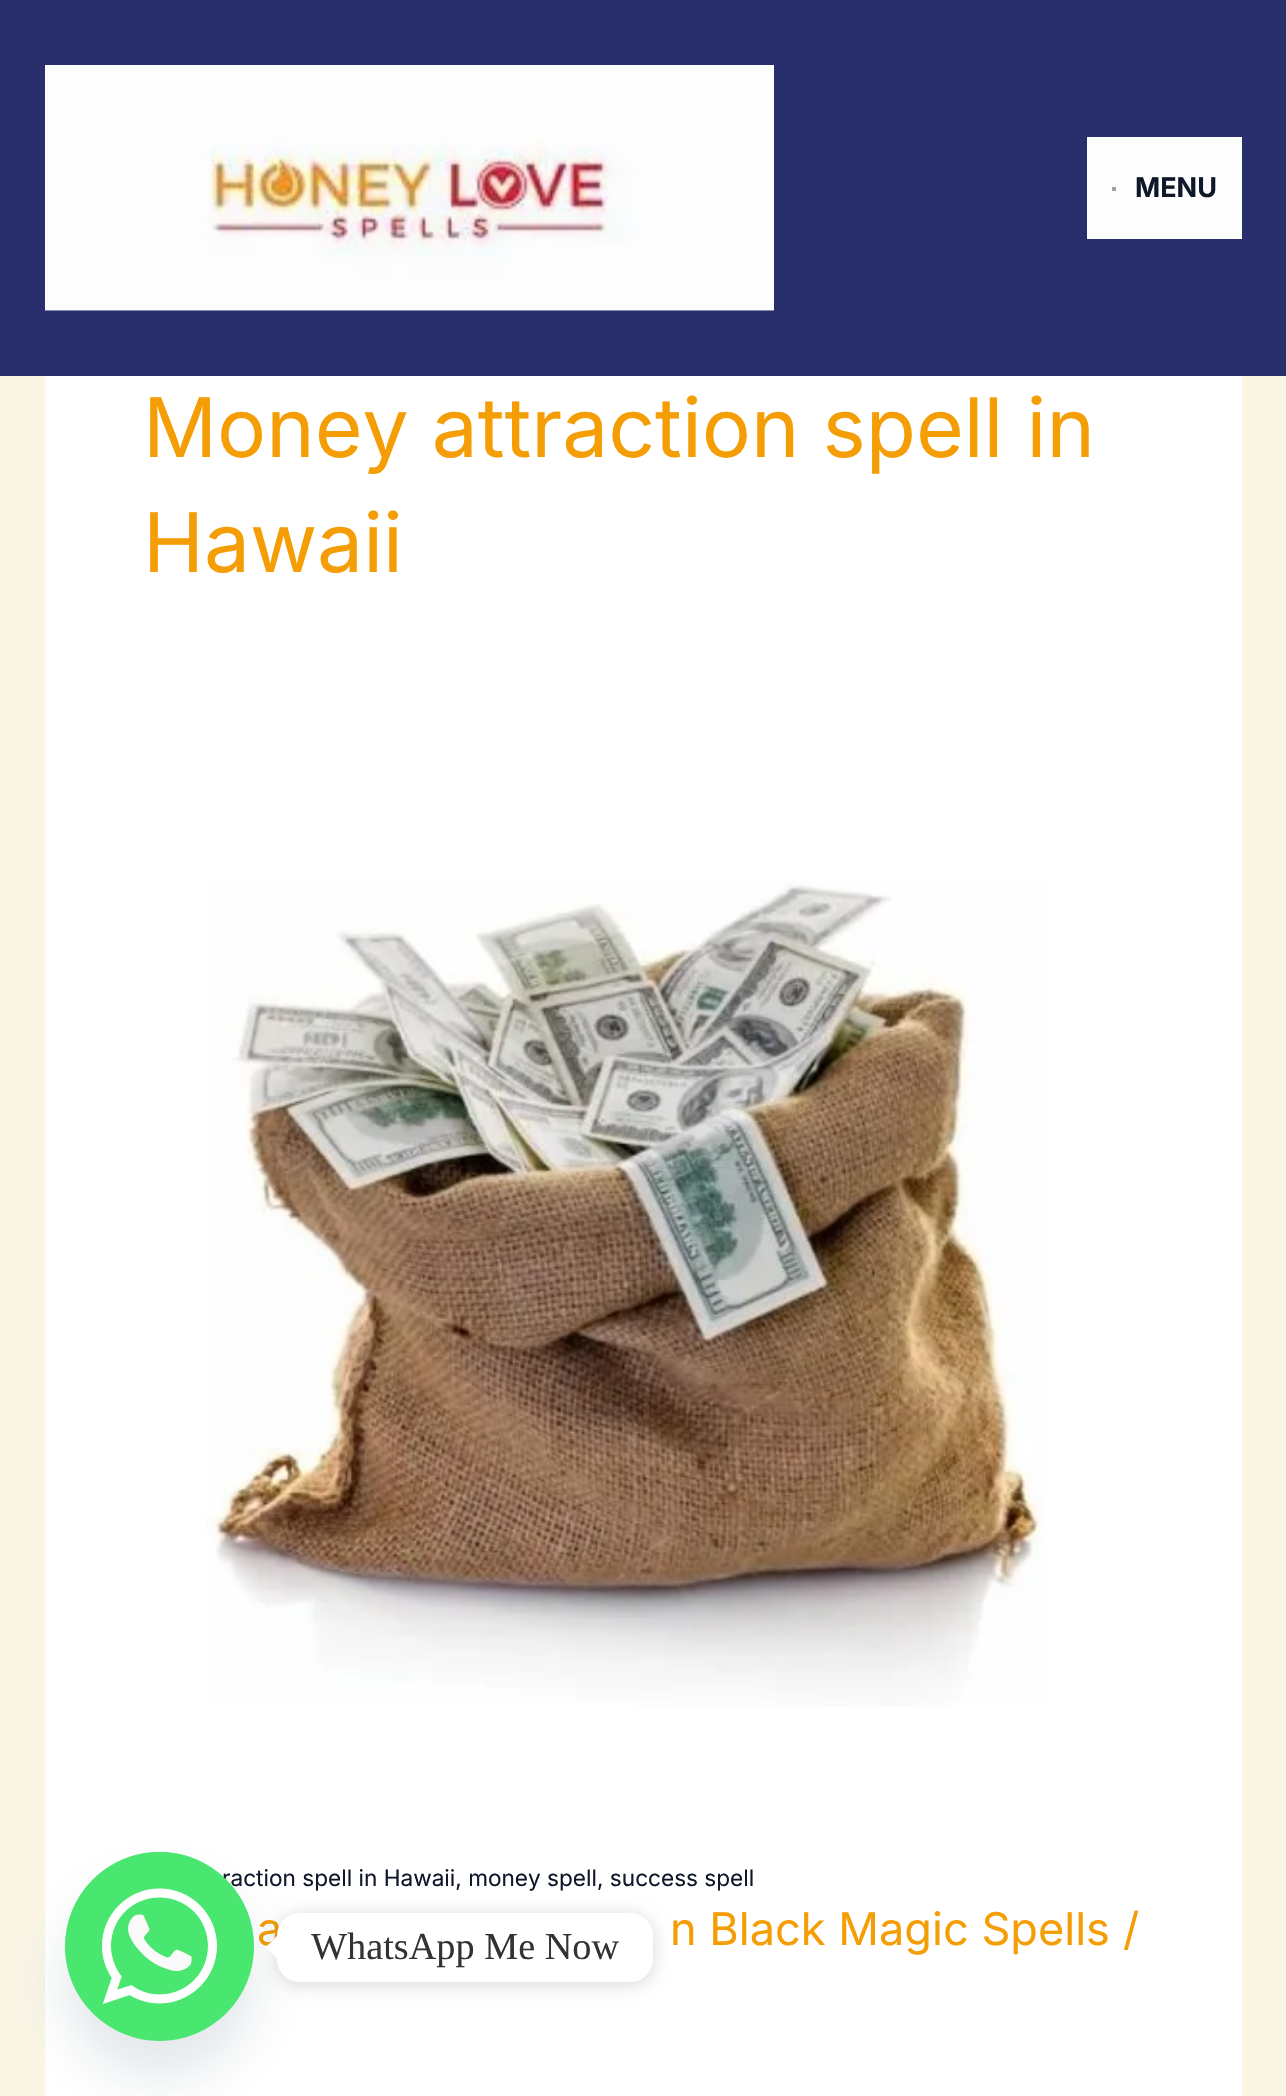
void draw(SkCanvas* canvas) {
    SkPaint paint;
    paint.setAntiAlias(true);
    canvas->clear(0xFFFAF5E5);
    paint.setColor(0xFF292E6D);
    canvas->drawRect(SkRect::MakeXYWH(0, 0, 1286, 376), paint);
    canvas->drawImageRect(SkImages::DeferredFromEncodedData(SkData::MakeFromFileName("img1.png")), SkRect::MakeXYWH(45, 65, 729, 246), SkSamplingOptions());
    paint.setColor(0xFFFDFDFE);
    canvas->drawRect(SkRect::MakeXYWH(1087, 137, 155, 102), paint);
    paint.setColor(0xFF9EA1A9);
    canvas->drawRect(SkRect::MakeXYWH(1112, 187, 4, 4), paint);
    SkFont font1(fontMgr->matchFamilyStyle("Inter", SkFontStyle::Bold()), 27);
    font1.setSubpixel(true);
    paint.setColor(0xFF0F172A);
    canvas->drawString("MENU", 1135, 197, font1, paint);
    paint.setColor(0xFFFFFFFF);
    canvas->drawRect(SkRect::MakeXYWH(45, 376, 1197, 1720), paint);
    SkFont font2(fontMgr->matchFamilyStyle("Inter", SkFontStyle::Normal()), 82);
    font2.setSubpixel(true);
    paint.setColor(0xFFF59D05);
    canvas->drawString("Money attraction spell in", 143, 457, font2, paint);
    canvas->drawString("Hawaii", 143, 572, font2, paint);
    canvas->drawImageRect(SkImages::DeferredFromEncodedData(SkData::MakeFromFileName("img2.png")), SkRect::MakeXYWH(206, 881, 840, 826), SkSamplingOptions());
    SkFont font3(fontMgr->matchFamilyStyle("Inter", SkFontStyle::Normal()), 22.6f);
    font3.setSubpixel(true);
    paint.setColor(0xFF0F172A);
    canvas->drawString("raction spell in Hawaii, money spell, success spell", 222, 1886, font3, paint);
    SkFont font4(fontMgr->matchFamilyStyle("Inter", SkFontStyle::Normal()), 45.1f);
    font4.setSubpixel(true);
    paint.setColor(0xFFF59D05);
    canvas->drawString("a", 257, 1945, font4, paint);
    canvas->drawString("n Black Magic Spells", 670, 1945, font4, paint);
    canvas->drawString("/", 1123, 1945, font4, paint);
    paint.setColor(0x2949687E);
    paint.setMaskFilter(SkMaskFilter::MakeBlur(kNormal_SkBlurStyle, 27));
    canvas->drawRoundRect(SkRect::MakeXYWH(65, 1888, 189, 189), 94.5f, 94.5f, paint);
    paint.setMaskFilter(nullptr);
    paint.setColor(0xFF49E670);
    canvas->drawCircle(159.5f, 1946.5f, 94.5f, paint);
    canvas->drawImageRect(SkImages::DeferredFromEncodedData(SkData::MakeFromFileName("img3.png")), SkRect::MakeXYWH(65, 1852, 189, 152), SkSamplingOptions());
    canvas->save();
    canvas->clipPath(SkPathBuilder(SkPathFillType::kEvenOdd).moveTo(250, 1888).lineTo(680, 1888).lineTo(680, 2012).lineTo(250, 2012).close().moveTo(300, 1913).lineTo(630, 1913).cubicTo(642.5f, 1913, 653, 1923.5f, 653, 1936).lineTo(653, 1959).cubicTo(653, 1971.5f, 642.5f, 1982, 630, 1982).lineTo(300, 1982).cubicTo(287.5f, 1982, 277, 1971.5f, 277, 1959).lineTo(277, 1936).cubicTo(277, 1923.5f, 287.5f, 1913, 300, 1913).close().detach(), true);
    paint.setColor(0x26000000);
    paint.setMaskFilter(SkMaskFilter::MakeBlur(kNormal_SkBlurStyle, 8.5f));
    canvas->drawRoundRect(SkRect::MakeXYWH(277, 1915, 376, 70), 23, 23, paint);
    paint.setMaskFilter(nullptr);
    canvas->restore();
    paint.setColor(0xFFFFFFFF);
    canvas->drawRoundRect(SkRect::MakeXYWH(277, 1913, 376, 69), 23, 23, paint);
    canvas->drawPath(SkPathBuilder().moveTo(277, 1936).lineTo(277, 1958.5f).lineTo(265.5f, 1947.5f).close().detach(), paint);
    SkFont font5(fontMgr->matchFamilyStyle("Liberation Serif", SkFontStyle::Normal()), 38.25f);
    font5.setSubpixel(true);
    paint.setColor(0xFF333333);
    canvas->drawString("WhatsApp Me Now", 311, 1959, font5, paint);
}
